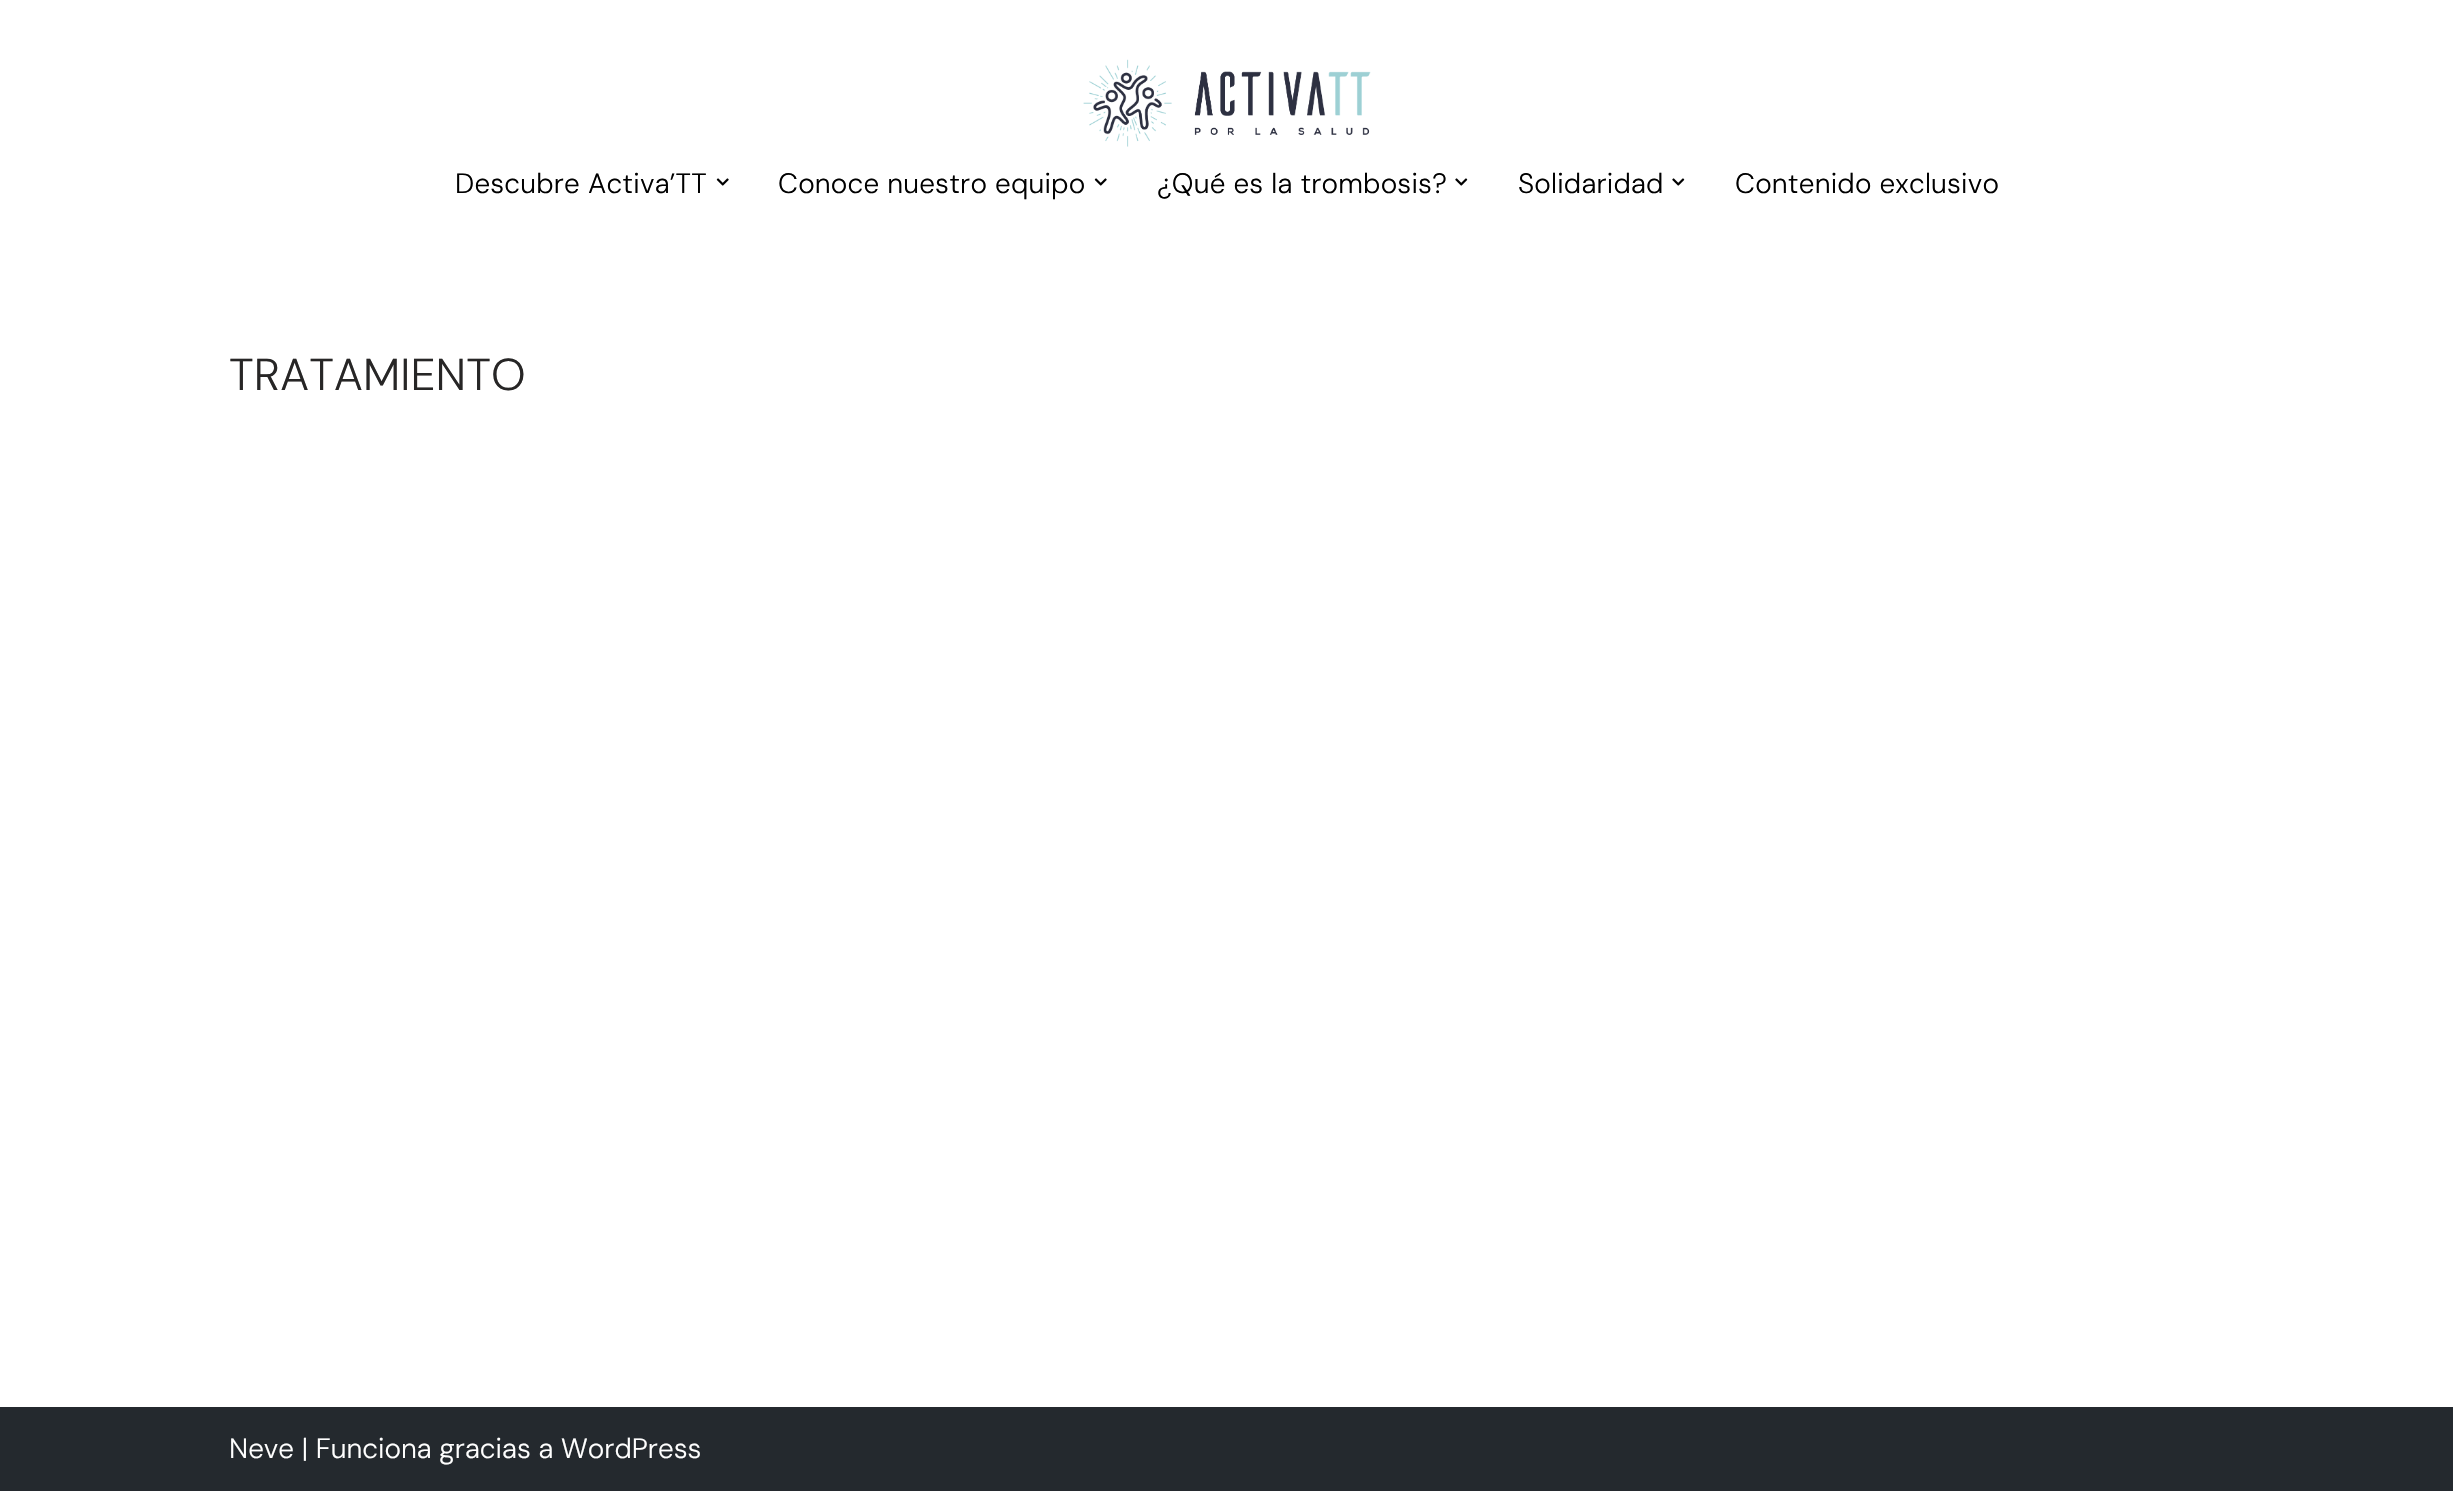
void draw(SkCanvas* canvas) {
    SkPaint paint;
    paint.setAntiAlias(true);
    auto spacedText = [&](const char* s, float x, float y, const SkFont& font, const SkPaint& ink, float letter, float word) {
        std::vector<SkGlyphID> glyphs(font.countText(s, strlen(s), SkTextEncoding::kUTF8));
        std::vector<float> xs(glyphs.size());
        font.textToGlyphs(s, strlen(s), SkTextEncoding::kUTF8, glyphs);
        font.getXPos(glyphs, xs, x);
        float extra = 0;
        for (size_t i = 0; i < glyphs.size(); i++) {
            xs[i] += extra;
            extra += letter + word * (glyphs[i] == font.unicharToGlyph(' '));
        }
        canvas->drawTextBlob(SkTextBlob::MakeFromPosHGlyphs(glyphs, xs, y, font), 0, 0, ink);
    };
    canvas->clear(0xFFFFFFFF);
    canvas->drawImageRect(SkImages::DeferredFromEncodedData(SkData::MakeFromFileName("img1.png")), SkRect::MakeXYWH(1083, 59, 288, 88), SkSamplingOptions());
    SkFont font1(fontMgr->matchFamilyStyle("DM Sans", SkFontStyle(300, SkFontStyle::kNormal_Width, SkFontStyle::kUpright_Slant)), 28);
    font1.setSubpixel(true);
    paint.setColor(0xFF000000);
    spacedText("Descubre Activa’TT", 455, 193, font1, paint, 0.2f, 0);
    canvas->drawImageRect(SkImages::DeferredFromEncodedData(SkData::MakeFromFileName("img2.png")), SkRect::MakeXYWH(716, 178, 13, 8), SkSamplingOptions());
    spacedText("Conoce nuestro equipo", 778, 193, font1, paint, 0.2f, 0);
    canvas->drawImageRect(SkImages::DeferredFromEncodedData(SkData::MakeFromFileName("img2.png")), SkRect::MakeXYWH(1094, 178, 13, 8), SkSamplingOptions());
    spacedText("¿Qué es la trombosis?", 1157, 193, font1, paint, 0.2f, 0);
    canvas->drawImageRect(SkImages::DeferredFromEncodedData(SkData::MakeFromFileName("img3.png")), SkRect::MakeXYWH(1455, 178, 13, 8), SkSamplingOptions());
    spacedText("Solidaridad", 1518, 193, font1, paint, 0.2f, 0);
    canvas->drawImageRect(SkImages::DeferredFromEncodedData(SkData::MakeFromFileName("img3.png")), SkRect::MakeXYWH(1672, 178, 13, 8), SkSamplingOptions());
    spacedText("Contenido exclusivo", 1735, 193, font1, paint, 0.2f, 0);
    SkFont font2(fontMgr->matchFamilyStyle("DM Sans", SkFontStyle(300, SkFontStyle::kNormal_Width, SkFontStyle::kUpright_Slant)), 44.75f);
    font2.setSubpixel(true);
    paint.setColor(0xFF272626);
    canvas->drawString("TRATAMIENTO", 229, 390, font2, paint);
    paint.setColor(0xFF24292E);
    canvas->drawRect(SkRect::MakeXYWH(0, 1407, 2453, 84), paint);
    paint.setColor(0xFFFFFFFF);
    canvas->drawString("Neve | Funciona gracias a WordPress", 229, 1458, font1, paint);
}
